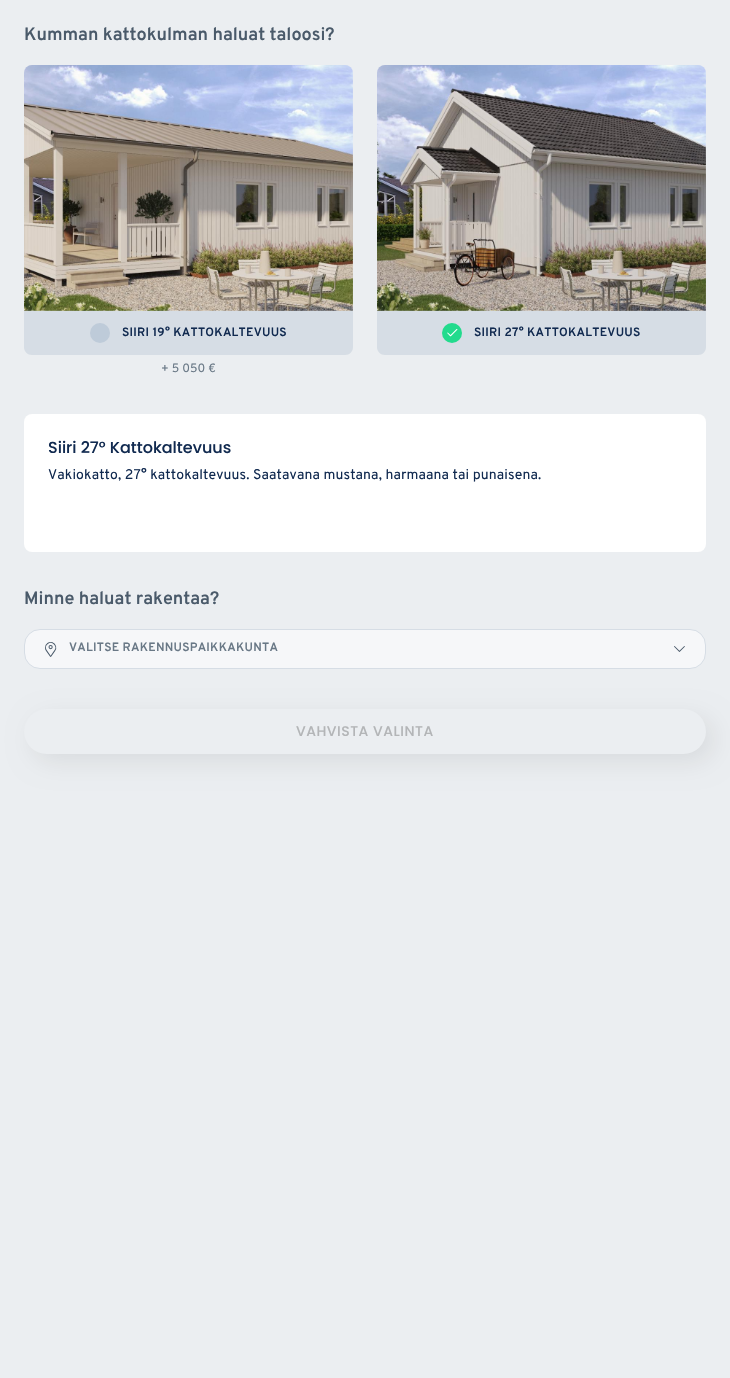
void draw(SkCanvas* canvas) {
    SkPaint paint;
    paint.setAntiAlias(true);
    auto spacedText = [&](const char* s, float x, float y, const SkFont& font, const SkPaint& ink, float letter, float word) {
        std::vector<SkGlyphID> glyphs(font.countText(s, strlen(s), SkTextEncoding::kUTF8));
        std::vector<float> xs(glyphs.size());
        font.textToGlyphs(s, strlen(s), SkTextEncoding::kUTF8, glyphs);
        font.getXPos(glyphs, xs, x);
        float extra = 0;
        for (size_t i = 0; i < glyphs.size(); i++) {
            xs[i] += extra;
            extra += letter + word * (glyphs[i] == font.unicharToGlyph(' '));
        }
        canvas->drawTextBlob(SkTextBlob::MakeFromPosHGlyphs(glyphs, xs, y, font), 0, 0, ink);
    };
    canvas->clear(0xFFEBEEF1);
    SkFont font1(fontMgr->matchFamilyStyle("Overpass", SkFontStyle(600, SkFontStyle::kNormal_Width, SkFontStyle::kUpright_Slant)), 18);
    font1.setSubpixel(true);
    paint.setColor(0xFF4A5A6A);
    canvas->drawString("Kumman kattokulman haluat taloosi?", 24, 40, font1, paint);
    canvas->drawImageRect(SkImages::DeferredFromEncodedData(SkData::MakeFromFileName("img1.png")), SkRect::MakeXYWH(24, 65, 329, 246), SkSamplingOptions());
    paint.setColor(0xFFD6DDE5);
    canvas->drawPath(SkPathBuilder().moveTo(24, 311).lineTo(353, 311).lineTo(353, 347).cubicTo(353, 351.5f, 349.5f, 355, 345, 355).lineTo(32, 355).cubicTo(27.5f, 355, 24, 351.5f, 24, 347).close().detach(), paint);
    paint.setColor(0xFFBECBD9);
    canvas->drawCircle(100, 333, 10, paint);
    SkFont font2(fontMgr->matchFamilyStyle("Overpass", SkFontStyle(600, SkFontStyle::kNormal_Width, SkFontStyle::kUpright_Slant)), 12);
    font2.setSubpixel(true);
    paint.setColor(0xFF112A50);
    spacedText("SIIRI 19° KATTOKALTEVUUS", 122, 336, font2, paint, 0.25f, 0);
    SkFont font3(fontMgr->matchFamilyStyle("Overpass", SkFontStyle::Normal()), 12);
    font3.setSubpixel(true);
    paint.setColor(0xFF697886);
    spacedText("+ 5 050 €", 161, 372, font3, paint, 0.1f, 0);
    canvas->drawImageRect(SkImages::DeferredFromEncodedData(SkData::MakeFromFileName("img2.png")), SkRect::MakeXYWH(377, 65, 329, 246), SkSamplingOptions());
    paint.setColor(0xFFD6DDE5);
    canvas->drawPath(SkPathBuilder().moveTo(377, 311).lineTo(706, 311).lineTo(706, 347).cubicTo(706, 351.5f, 702.5f, 355, 698, 355).lineTo(385, 355).cubicTo(380.5f, 355, 377, 351.5f, 377, 347).close().detach(), paint);
    paint.setColor(0xFF22DB8D);
    canvas->drawCircle(452, 333, 10, paint);
    canvas->drawImageRect(SkImages::DeferredFromEncodedData(SkData::MakeFromFileName("img3.png")), SkRect::MakeXYWH(447, 329, 11, 8), SkSamplingOptions());
    paint.setColor(0xFF112A50);
    spacedText("SIIRI 27° KATTOKALTEVUUS", 474, 336, font2, paint, 0.25f, 0);
    paint.setColor(0xFFFFFFFF);
    canvas->drawRoundRect(SkRect::MakeXYWH(24, 414, 682, 138), 8, 8, paint);
    SkFont font4(fontMgr->matchFamilyStyle("Poppins", SkFontStyle(500, SkFontStyle::kNormal_Width, SkFontStyle::kUpright_Slant)), 16);
    font4.setSubpixel(true);
    paint.setColor(0xFF112A50);
    canvas->drawString("Siiri 27° Kattokaltevuus", 48, 453, font4, paint);
    SkFont font5(fontMgr->matchFamilyStyle("Overpass", SkFontStyle::Normal()), 14);
    font5.setSubpixel(true);
    spacedText("Vakiokatto, 27° kattokaltevuus. Saatavana mustana, harmaana tai punaisena.", 48, 479, font5, paint, 0.15f, 0);
    paint.setColor(0xFF4A5A6A);
    canvas->drawString("Minne haluat rakentaa?", 24, 604, font1, paint);
    paint.setColor(0xFFF6F7F9);
    canvas->drawRoundRect(SkRect::MakeXYWH(24.5f, 629.5f, 681, 39), 15.5f, 15.5f, paint);
    paint.setStyle(SkPaint::kStroke_Style);
    paint.setStrokeWidth(1);
    paint.setColor(0xFFD6DDE5);
    canvas->drawRoundRect(SkRect::MakeXYWH(24.5f, 629.5f, 681, 39), 15.5f, 15.5f, paint);
    canvas->drawImageRect(SkImages::DeferredFromEncodedData(SkData::MakeFromFileName("img4.png")), SkRect::MakeXYWH(45, 642, 12, 15), SkSamplingOptions());
    paint.setStyle(SkPaint::kFill_Style);
    paint.setColor(0xFF697886);
    spacedText("VALITSE RAKENNUSPAIKKAKUNTA", 69, 651, font2, paint, 0.25f, 0);
    canvas->drawImageRect(SkImages::DeferredFromEncodedData(SkData::MakeFromFileName("img5.png")), SkRect::MakeXYWH(674, 646, 11, 6), SkSamplingOptions());
    paint.setColor(0x14000000);
    paint.setMaskFilter(SkMaskFilter::MakeBlur(kNormal_SkBlurStyle, 12));
    canvas->drawRoundRect(SkRect::MakeXYWH(32, 717, 682, 45), 22.5f, 22.5f, paint);
    paint.setMaskFilter(nullptr);
    paint.setColor(0xFFEBEEF1);
    canvas->drawRoundRect(SkRect::MakeXYWH(24, 709, 682, 45), 22.5f, 22.5f, paint);
    SkFont font6(fontMgr->matchFamilyStyle("Poppins", SkFontStyle(500, SkFontStyle::kNormal_Width, SkFontStyle::kUpright_Slant)), 14);
    font6.setSubpixel(true);
    paint.setColor(0xFFB3B5B7);
    spacedText("VAHVISTA VALINTA", 296, 736, font6, paint, 0.5f, 0);
}
